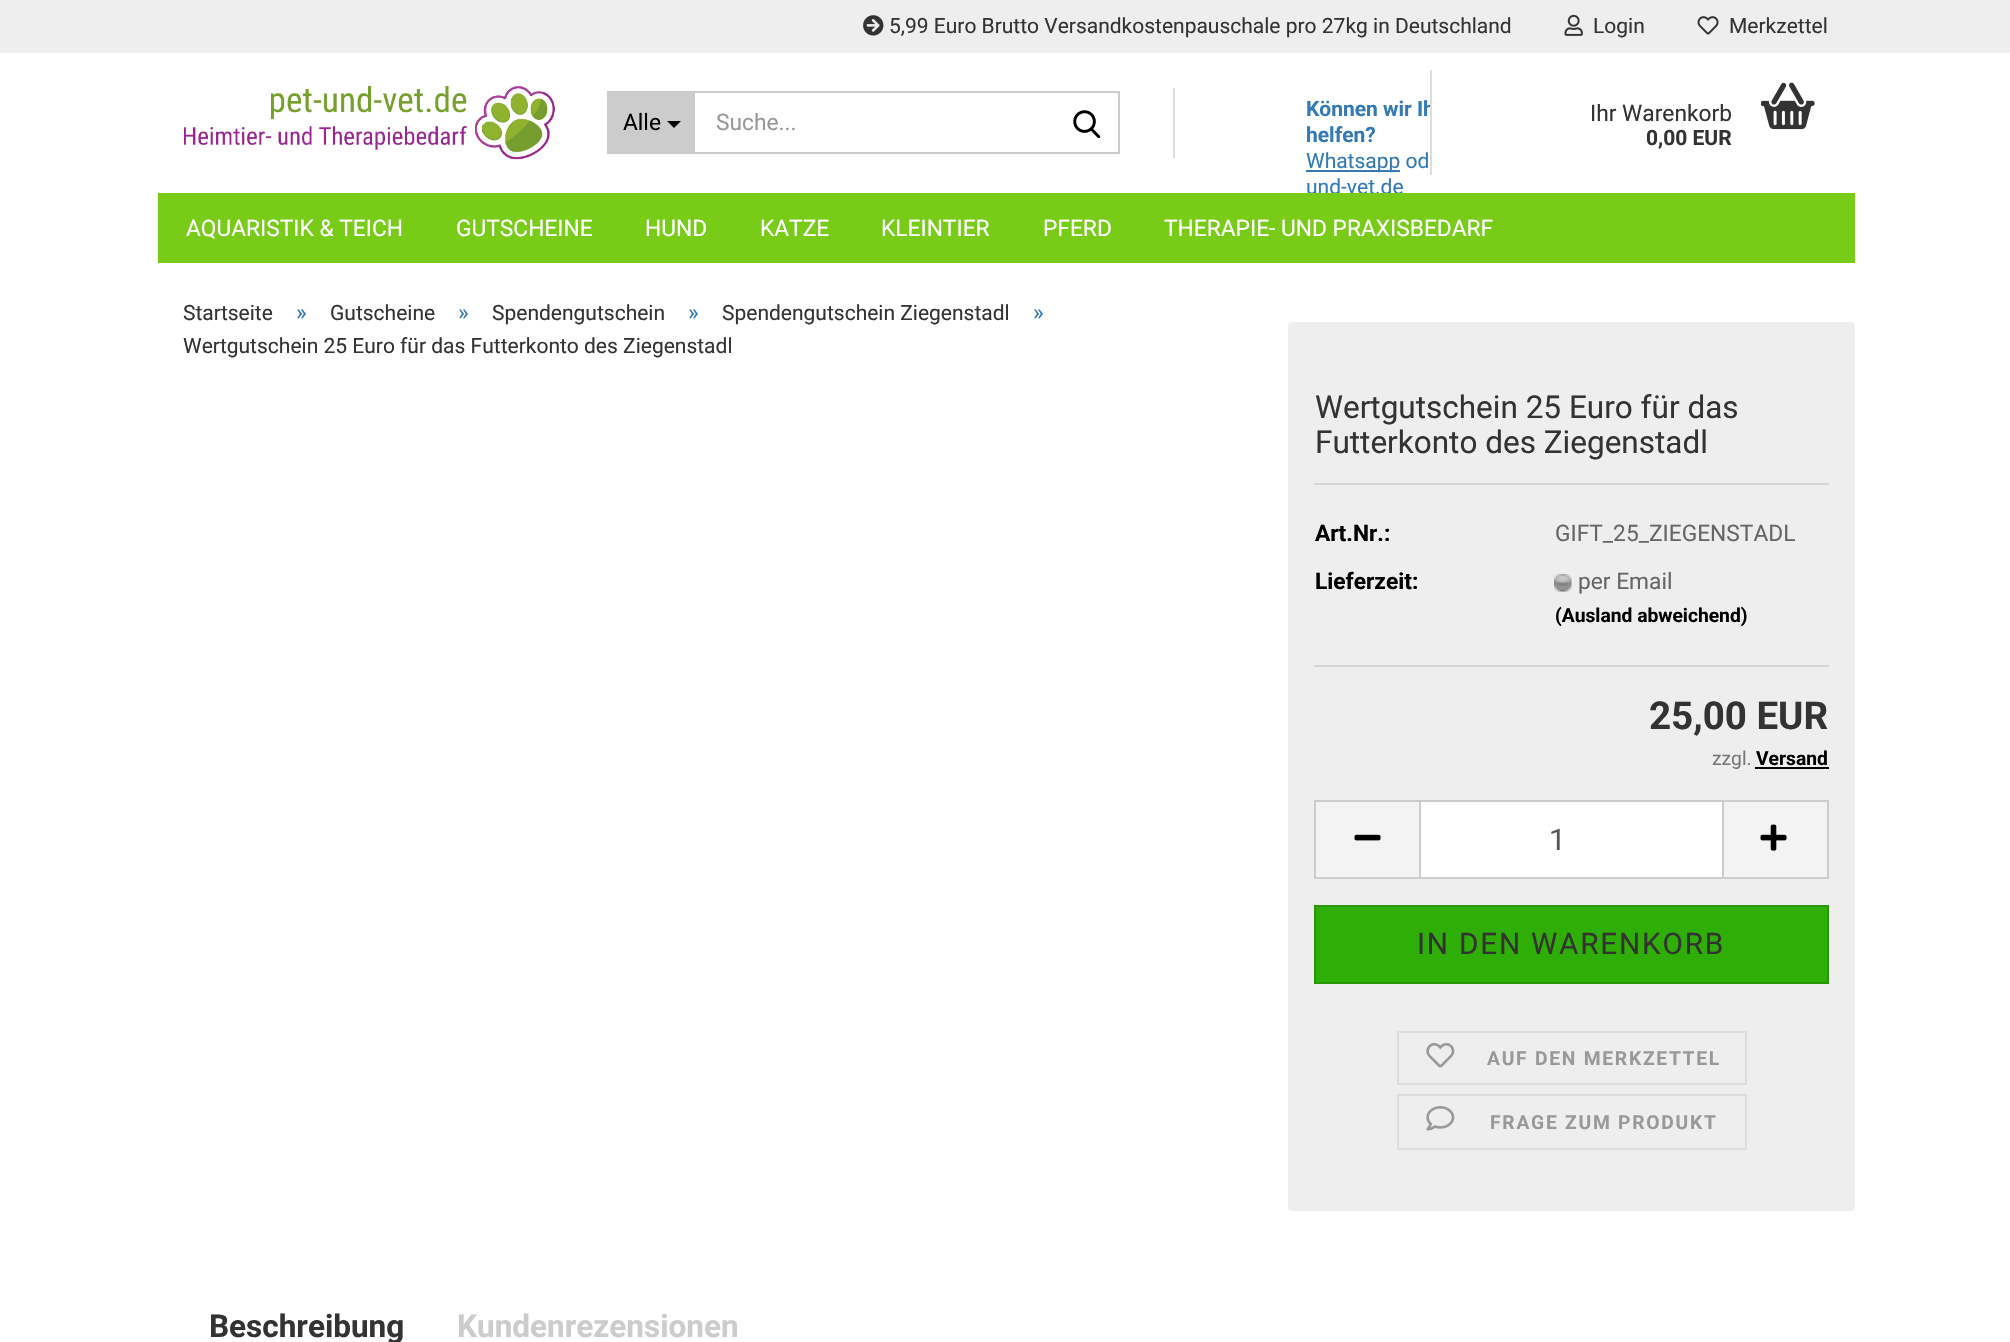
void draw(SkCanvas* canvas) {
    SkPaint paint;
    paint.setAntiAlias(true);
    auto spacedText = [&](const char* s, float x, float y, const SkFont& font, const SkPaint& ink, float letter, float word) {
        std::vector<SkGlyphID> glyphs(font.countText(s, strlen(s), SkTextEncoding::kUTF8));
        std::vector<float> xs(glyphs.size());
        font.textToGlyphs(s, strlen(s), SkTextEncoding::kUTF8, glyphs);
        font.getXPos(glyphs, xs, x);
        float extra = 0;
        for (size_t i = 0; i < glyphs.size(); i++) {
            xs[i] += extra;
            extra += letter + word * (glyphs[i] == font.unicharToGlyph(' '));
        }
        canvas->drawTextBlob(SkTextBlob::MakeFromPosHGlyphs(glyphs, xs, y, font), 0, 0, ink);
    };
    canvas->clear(0xFFFFFFFF);
    paint.setColor(0xFFEEEEEE);
    canvas->drawRect(SkRect::MakeXYWH(0, 0, 2010, 53), paint);
    canvas->drawImageRect(SkImages::DeferredFromEncodedData(SkData::MakeFromFileName("img1.png")), SkRect::MakeXYWH(863, 15, 21, 21), SkSamplingOptions());
    SkFont font1(fontMgr->matchFamilyStyle("Roboto", SkFontStyle::Normal()), 21);
    font1.setSubpixel(true);
    paint.setColor(0xFF333333);
    canvas->drawString("5,99 Euro Brutto Versandkostenpauschale pro 27kg in Deutschland", 889, 33, font1, paint);
    canvas->drawImageRect(SkImages::DeferredFromEncodedData(SkData::MakeFromFileName("img2.png")), SkRect::MakeXYWH(1564, 14, 19, 22), SkSamplingOptions());
    canvas->drawString("Login", 1593, 33, font1, paint);
    canvas->drawImageRect(SkImages::DeferredFromEncodedData(SkData::MakeFromFileName("img3.png")), SkRect::MakeXYWH(1697, 16, 22, 19), SkSamplingOptions());
    canvas->drawString("Merkzettel", 1729, 33, font1, paint);
    canvas->drawImageRect(SkImages::DeferredFromEncodedData(SkData::MakeFromFileName("img4.png")), SkRect::MakeXYWH(183, 85, 372, 75), SkSamplingOptions());
    paint.setColor(0xFFCCCCCC);
    canvas->drawRect(SkRect::MakeXYWH(607, 91, 88, 63), paint);
    SkFont font2(fontMgr->matchFamilyStyle("Roboto", SkFontStyle::Normal()), 22.75f);
    font2.setSubpixel(true);
    paint.setColor(0xFF000000);
    canvas->drawString("Alle", 623, 130, font2, paint);
    canvas->drawPath(SkPathBuilder().moveTo(667, 121).lineTo(681, 121).lineTo(674, 128).close().detach(), paint);
    paint.setColor(0xFFCCCCCC);
    canvas->drawRect(SkRect::MakeXYWH(695, 91, 425, 2), paint);
    canvas->drawRect(SkRect::MakeXYWH(1118, 91, 2, 63), paint);
    canvas->drawRect(SkRect::MakeXYWH(695, 152, 425, 2), paint);
    paint.setColor(0xFF999999);
    canvas->drawString("Suche...", 716, 130, font2, paint);
    canvas->drawImageRect(SkImages::DeferredFromEncodedData(SkData::MakeFromFileName("img5.png")), SkRect::MakeXYWH(1073, 110, 28, 28), SkSamplingOptions());
    paint.setColor(0xFFDDDDDD);
    canvas->drawRect(SkRect::MakeXYWH(1173, 88, 2, 70), paint);
    canvas->save();
    canvas->clipRect(SkRect::MakeXYWH(1146, 53, 284, 140));
    SkFont font3(fontMgr->matchFamilyStyle("Roboto", SkFontStyle::Bold()), 21);
    font3.setSubpixel(true);
    paint.setColor(0xFF337AB7);
    canvas->drawString("Können wir Ih", 1306, 116, font3, paint);
    canvas->restore();
    canvas->drawString("helfen?", 1306, 142, font3, paint);
    canvas->drawRect(SkRect::MakeXYWH(1306, 170, 94, 2), paint);
    canvas->drawString("Whatsapp od", 1306, 168, font1, paint);
    canvas->save();
    canvas->clipRect(SkRect::MakeXYWH(1146, 53, 284, 140));
    canvas->drawString("und-vet.de", 1306, 194, font1, paint);
    canvas->restore();
    paint.setColor(0xFFDDDDDD);
    canvas->drawRect(SkRect::MakeXYWH(1430, 70, 2, 105), paint);
    paint.setColor(0xFF333333);
    canvas->drawString("Ihr Warenkorb", 1590, 121, font2, paint);
    canvas->drawString("0,00 EUR", 1646, 145, font3, paint);
    canvas->drawImageRect(SkImages::DeferredFromEncodedData(SkData::MakeFromFileName("img6.png")), SkRect::MakeXYWH(1761, 82, 54, 48), SkSamplingOptions());
    paint.setColor(0xFF78CB17);
    canvas->drawRect(SkRect::MakeXYWH(158, 193, 1697, 70), paint);
    paint.setColor(0xFFFFFFFF);
    canvas->drawString("AQUARISTIK & TEICH", 186, 236, font2, paint);
    canvas->drawString("GUTSCHEINE", 456, 236, font2, paint);
    canvas->drawString("HUND", 645, 236, font2, paint);
    canvas->drawString("KATZE", 760, 236, font2, paint);
    canvas->drawString("KLEINTIER", 881, 236, font2, paint);
    canvas->drawString("PFERD", 1043, 236, font2, paint);
    canvas->drawString("THERAPIE- UND PRAXISBEDARF", 1164, 236, font2, paint);
    paint.setColor(0xFF333333);
    canvas->drawString("Startseite", 183, 320, font1, paint);
    paint.setColor(0xFF337AB7);
    canvas->drawString("»", 296, 320, font2, paint);
    paint.setColor(0xFF333333);
    canvas->drawString("Gutscheine", 330, 320, font1, paint);
    paint.setColor(0xFF337AB7);
    canvas->drawString("»", 458, 320, font2, paint);
    paint.setColor(0xFF333333);
    canvas->drawString("Spendengutschein", 492, 320, font1, paint);
    paint.setColor(0xFF337AB7);
    canvas->drawString("»", 688, 320, font2, paint);
    paint.setColor(0xFF333333);
    canvas->drawString("Spendengutschein Ziegenstadl", 722, 320, font1, paint);
    paint.setColor(0xFF337AB7);
    canvas->drawString("»", 1033, 320, font2, paint);
    paint.setColor(0xFF333333);
    canvas->drawString("Wertgutschein 25 Euro für das Futterkonto des Ziegenstadl", 183, 353, font1, paint);
    paint.setColor(0xFFEEEEEE);
    canvas->drawRoundRect(SkRect::MakeXYWH(1288, 322, 567, 889), 4, 4, paint);
    paint.setColor(0xFFD5D5D5);
    canvas->drawRect(SkRect::MakeXYWH(1314, 483, 515, 2), paint);
    SkFont font4(fontMgr->matchFamilyStyle("Roboto", SkFontStyle::Normal()), 31.5f);
    font4.setSubpixel(true);
    paint.setColor(0xFF333333);
    canvas->drawString("Wertgutschein 25 Euro für das", 1315, 418, font4, paint);
    canvas->drawString("Futterkonto des Ziegenstadl", 1315, 453, font4, paint);
    paint.setColor(0xFFD5D5D5);
    canvas->drawRect(SkRect::MakeXYWH(1314, 665, 515, 2), paint);
    SkFont font5(fontMgr->matchFamilyStyle("Roboto", SkFontStyle::Bold()), 22.75f);
    font5.setSubpixel(true);
    paint.setColor(0xFF000000);
    canvas->drawString("Art.Nr.:", 1315, 541, font5, paint);
    paint.setColor(0xFF666666);
    canvas->drawString("GIFT_25_ZIEGENSTADL", 1555, 541, font2, paint);
    paint.setColor(0xFF000000);
    canvas->drawString("Lieferzeit:", 1315, 589, font5, paint);
    canvas->drawImageRect(SkImages::DeferredFromEncodedData(SkData::MakeFromFileName("img7.png")), SkRect::MakeXYWH(1554, 574, 18, 18), SkSamplingOptions());
    paint.setColor(0xFF666666);
    canvas->drawString("per Email", 1578, 589, font2, paint);
    SkFont font6(fontMgr->matchFamilyStyle("Roboto", SkFontStyle::Bold()), 19.25f);
    font6.setSubpixel(true);
    paint.setColor(0xFF000000);
    canvas->drawString("(Ausland abweichend)", 1555, 622, font6, paint);
    SkFont font7(fontMgr->matchFamilyStyle("Roboto", SkFontStyle::Bold()), 38.5f);
    font7.setSubpixel(true);
    paint.setColor(0xFF333333);
    canvas->drawString("25,00 EUR", 1649, 729, font7, paint);
    SkFont font8(fontMgr->matchFamilyStyle("Roboto", SkFontStyle::Normal()), 19.25f);
    font8.setSubpixel(true);
    paint.setColor(0xFF777777);
    canvas->drawString("zzgl.", 1712, 765, font8, paint);
    paint.setColor(0xFF000000);
    canvas->drawString("Versand", 1756, 765, font6, paint);
    canvas->drawRect(SkRect::MakeXYWH(1755, 767, 74, 2), paint);
    paint.setColor(0xFFF3F3F3);
    canvas->drawRect(SkRect::MakeXYWH(1316, 802, 103, 75), paint);
    paint.setColor(0xFFCCCCCC);
    canvas->drawRect(SkRect::MakeXYWH(1314, 800, 105, 2), paint);
    canvas->drawRect(SkRect::MakeXYWH(1314, 877, 105, 2), paint);
    canvas->drawRect(SkRect::MakeXYWH(1314, 800, 2, 79), paint);
    canvas->drawImageRect(SkImages::DeferredFromEncodedData(SkData::MakeFromFileName("img8.png")), SkRect::MakeXYWH(1354, 834, 27, 7), SkSamplingOptions());
    paint.setColor(0xFFFFFFFF);
    canvas->drawRect(SkRect::MakeXYWH(1420, 801, 303, 77), paint);
    paint.setStyle(SkPaint::kStroke_Style);
    paint.setStrokeWidth(2);
    paint.setColor(0xFFCCCCCC);
    canvas->drawRect(SkRect::MakeXYWH(1420, 801, 303, 77), paint);
    SkFont font9(fontMgr->matchFamilyStyle("Roboto", SkFontStyle::Normal()), 29.75f);
    font9.setSubpixel(true);
    paint.setStyle(SkPaint::kFill_Style);
    paint.setColor(0xFF555555);
    canvas->drawString("1", 1549, 850, font9, paint);
    paint.setColor(0xFFF3F3F3);
    canvas->drawRect(SkRect::MakeXYWH(1724, 802, 103, 75), paint);
    paint.setColor(0xFFCCCCCC);
    canvas->drawRect(SkRect::MakeXYWH(1724, 800, 105, 2), paint);
    canvas->drawRect(SkRect::MakeXYWH(1827, 800, 2, 79), paint);
    canvas->drawRect(SkRect::MakeXYWH(1724, 877, 105, 2), paint);
    canvas->drawImageRect(SkImages::DeferredFromEncodedData(SkData::MakeFromFileName("img9.png")), SkRect::MakeXYWH(1760, 824, 27, 27), SkSamplingOptions());
    paint.setColor(0xFF2EAE06);
    canvas->drawRect(SkRect::MakeXYWH(1315, 906, 513, 77), paint);
    paint.setStyle(SkPaint::kStroke_Style);
    paint.setColor(0xFF279505);
    canvas->drawRect(SkRect::MakeXYWH(1315, 906, 513, 77), paint);
    paint.setStyle(SkPaint::kFill_Style);
    paint.setColor(0xFF333333);
    spacedText("IN DEN WARENKORB", 1417, 954, font9, paint, 1.75f, 0);
    paint.setStyle(SkPaint::kStroke_Style);
    paint.setColor(0xFFDDDDDD);
    canvas->drawRect(SkRect::MakeXYWH(1398, 1032, 348, 52), paint);
    canvas->drawImageRect(SkImages::DeferredFromEncodedData(SkData::MakeFromFileName("img10.png")), SkRect::MakeXYWH(1426, 1043, 29, 25), SkSamplingOptions());
    paint.setStyle(SkPaint::kFill_Style);
    paint.setColor(0xFF999999);
    spacedText("AUF DEN MERKZETTEL", 1487, 1065, font6, paint, 1.75f, 0);
    paint.setStyle(SkPaint::kStroke_Style);
    paint.setColor(0xFFDDDDDD);
    canvas->drawRect(SkRect::MakeXYWH(1398, 1095, 348, 54), paint);
    canvas->drawImageRect(SkImages::DeferredFromEncodedData(SkData::MakeFromFileName("img11.png")), SkRect::MakeXYWH(1426, 1106, 29, 25), SkSamplingOptions());
    paint.setStyle(SkPaint::kFill_Style);
    paint.setColor(0xFF999999);
    spacedText("FRAGE ZUM PRODUKT", 1490, 1129, font6, paint, 1.75f, 0);
    SkFont font10(fontMgr->matchFamilyStyle("Roboto", SkFontStyle::Bold()), 31.5f);
    font10.setSubpixel(true);
    paint.setColor(0xFF333333);
    canvas->drawString("Beschreibung", 209, 1337, font10, paint);
    paint.setColor(0xFFCCCCCC);
    canvas->drawString("Kundenrezensionen", 457, 1337, font10, paint);
}
